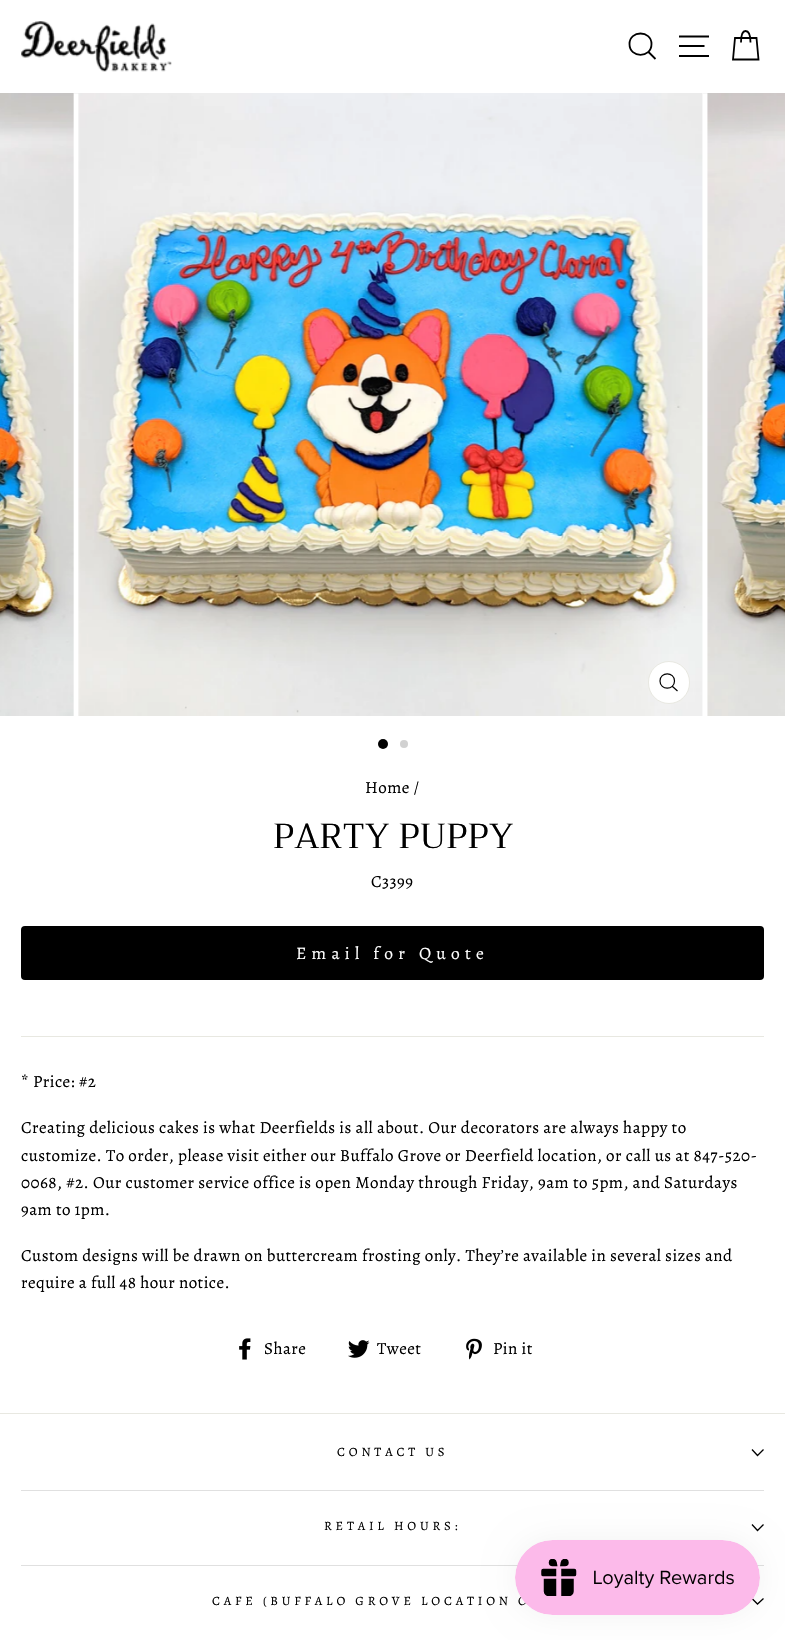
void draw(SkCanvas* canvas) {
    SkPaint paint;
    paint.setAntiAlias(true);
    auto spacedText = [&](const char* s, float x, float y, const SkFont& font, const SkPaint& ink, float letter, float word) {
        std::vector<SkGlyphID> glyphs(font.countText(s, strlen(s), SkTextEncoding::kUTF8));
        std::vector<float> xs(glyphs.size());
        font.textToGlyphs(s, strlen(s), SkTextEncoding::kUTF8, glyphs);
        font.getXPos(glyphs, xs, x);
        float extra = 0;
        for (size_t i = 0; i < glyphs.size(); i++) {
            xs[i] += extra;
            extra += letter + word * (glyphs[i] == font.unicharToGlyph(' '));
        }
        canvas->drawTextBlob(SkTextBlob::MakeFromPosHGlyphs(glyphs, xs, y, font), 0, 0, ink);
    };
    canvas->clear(0xFFFFFFFF);
    paint.setColor(0x33000000);
    paint.setMaskFilter(SkMaskFilter::MakeBlur(kNormal_SkBlurStyle, 0.5f));
    canvas->drawRect(SkRect::MakeXYWH(0, 0, 785, 93), paint);
    paint.setMaskFilter(nullptr);
    paint.setColor(0xFFFFFFFF);
    canvas->drawRect(SkRect::MakeXYWH(0, 0, 785, 93), paint);
    canvas->drawImageRect(SkImages::DeferredFromEncodedData(SkData::MakeFromFileName("img1.png")), SkRect::MakeXYWH(21, 21, 151, 51), SkSamplingOptions());
    paint.setStyle(SkPaint::kStroke_Style);
    paint.setStrokeWidth(1.8f);
    paint.setColor(0xFF000000);
    canvas->drawPath(SkPathBuilder().moveTo(651.5f, 44).cubicTo(651.5f, 58.5f, 629.5f, 58.5f, 629.5f, 44).cubicTo(629.5f, 30, 651.5f, 30, 651.5f, 44).close().moveTo(655.5f, 59).lineTo(648.5f, 52).detach(), paint);
    canvas->drawPath(SkPathBuilder().moveTo(679, 36.5f).lineTo(709, 36.5f).moveTo(679, 46).lineTo(704.5f, 46).moveTo(679, 56).lineTo(709, 56).detach(), paint);
    canvas->drawPath(SkPathBuilder().moveTo(741, 42.5f).cubicTo(741, 33.5f, 743, 31, 745.5f, 31).cubicTo(748, 31, 750.5f, 33.5f, 750.5f, 42.5f).moveTo(735, 38).lineTo(756.5f, 38).lineTo(758.5f, 59.5f).lineTo(733, 59.5f).close().detach(), paint);
    paint.setStyle(SkPaint::kFill_Style);
    paint.setColor(0xFFFFFFFF);
    canvas->drawRect(SkRect::MakeXYWH(73, 93, 1, 1), paint);
    canvas->drawImageRect(SkImages::DeferredFromEncodedData(SkData::MakeFromFileName("img2.png")), SkRect::MakeXYWH(0, 93, 74, 623), SkSamplingOptions());
    canvas->drawRect(SkRect::MakeXYWH(79, 93, 624, 1), paint);
    canvas->drawImageRect(SkImages::DeferredFromEncodedData(SkData::MakeFromFileName("img3.png")), SkRect::MakeXYWH(78, 93, 625, 623), SkSamplingOptions());
    canvas->drawRoundRect(SkRect::MakeXYWH(648.5f, 661.5f, 41, 42), 20.5f, 20.5f, paint);
    paint.setStyle(SkPaint::kStroke_Style);
    paint.setStrokeWidth(1);
    paint.setColor(0xFFE8E8E1);
    canvas->drawRoundRect(SkRect::MakeXYWH(648.5f, 661.5f, 41, 42), 20.5f, 20.5f, paint);
    paint.setStrokeWidth(1.2f);
    paint.setColor(0xFF000000);
    canvas->drawPath(SkPathBuilder().moveTo(674.5f, 681).cubicTo(674.5f, 690.5f, 660, 690.5f, 660, 681).cubicTo(660, 671.5f, 674.5f, 671.5f, 674.5f, 681).close().moveTo(677.5f, 691).lineTo(672.5f, 686.5f).detach(), paint);
    canvas->drawImageRect(SkImages::DeferredFromEncodedData(SkData::MakeFromFileName("img4.png")), SkRect::MakeXYWH(707, 93, 78, 623), SkSamplingOptions());
    paint.setStyle(SkPaint::kFill_Style);
    canvas->drawCircle(383, 744, 5, paint);
    paint.setColor(0xFFD1D1D1);
    canvas->drawCircle(404, 744, 4, paint);
    SkFont font1(fontMgr->matchFamilyStyle("Alegreya", SkFontStyle::Normal()), 17);
    font1.setSubpixel(true);
    paint.setColor(0xFF000000);
    spacedText("Home /", 365, 793, font1, paint, 0.43f, 0);
    SkFont font2(fontMgr->matchFamilyStyle("Trirong", SkFontStyle::Normal()), 34.75f);
    font2.setSubpixel(true);
    canvas->drawString("PARTY PUPPY", 273, 848, font2, paint);
    spacedText("C3399", 371, 887, font1, paint, 0.43f, 0);
    canvas->drawRoundRect(SkRect::MakeXYWH(21, 926, 743, 54), 4, 4, paint);
    SkFont font3(fontMgr->matchFamilyStyle("Alegreya", SkFontStyle::Normal()), 17.5f);
    font3.setSubpixel(true);
    paint.setColor(0xFFFFFFFF);
    spacedText("Email for Quote", 296, 959, font3, paint, 5.25f, 0);
    paint.setColor(0xFFE8E8E1);
    canvas->drawRect(SkRect::MakeXYWH(21, 1036, 743, 1), paint);
    paint.setColor(0xFF000000);
    spacedText("* Price: #2", 21, 1087, font1, paint, 0.43f, 0);
    spacedText("Creating delicious cakes is what Deerfields is all about. Our decorators are always happy to", 21, 1133, font1, paint, 0.43f, 0);
    spacedText("customize. To order, please visit either our Buffalo Grove or Deerfield location, or call us at 847-520-", 21, 1161, font1, paint, 0.43f, 0);
    spacedText("0068, #2. Our customer service office is open Monday through Friday, 9am to 5pm, and Saturdays", 21, 1188, font1, paint, 0.43f, 0);
    spacedText("9am to 1pm.", 21, 1215, font1, paint, 0.43f, 0);
    spacedText("Custom designs will be drawn on buttercream frosting only. They’re available in several sizes and", 21, 1261, font1, paint, 0.43f, 0);
    spacedText("require a full 48 hour notice.", 21, 1288, font1, paint, 0.43f, 0);
    canvas->drawImageRect(SkImages::DeferredFromEncodedData(SkData::MakeFromFileName("img5.png")), SkRect::MakeXYWH(239, 1338, 12, 22), SkSamplingOptions());
    spacedText("Share", 264, 1354, font1, paint, 0.43f, 0);
    canvas->drawImageRect(SkImages::DeferredFromEncodedData(SkData::MakeFromFileName("img6.png")), SkRect::MakeXYWH(348, 1340, 22, 18), SkSamplingOptions());
    spacedText("Tweet", 377, 1354, font1, paint, 0.43f, 0);
    canvas->drawImageRect(SkImages::DeferredFromEncodedData(SkData::MakeFromFileName("img7.png")), SkRect::MakeXYWH(466, 1338, 16, 22), SkSamplingOptions());
    spacedText("Pin it", 493, 1354, font1, paint, 0.43f, 0);
    paint.setColor(0xFFE8E8E1);
    canvas->drawRect(SkRect::MakeXYWH(0, 1413, 785, 1), paint);
    SkFont font4(fontMgr->matchFamilyStyle("Alegreya", SkFontStyle::Normal()), 12.75f);
    font4.setSubpixel(true);
    paint.setColor(0xFF000000);
    spacedText("CONTACT US", 337, 1456, font4, paint, 3.8f, 0);
    paint.setStyle(SkPaint::kStroke_Style);
    paint.setStrokeWidth(1.3f);
    canvas->drawPath(SkPathBuilder().moveTo(752, 1449.5f).lineTo(757.5f, 1455.5f).lineTo(763.5f, 1449.5f).detach(), paint);
    paint.setStyle(SkPaint::kFill_Style);
    paint.setColor(0xFFE0E0E0);
    canvas->drawRect(SkRect::MakeXYWH(21, 1490, 743, 1), paint);
    paint.setColor(0xFF000000);
    spacedText("RETAIL HOURS:", 324, 1530, font4, paint, 3.8f, 0);
    paint.setStyle(SkPaint::kStroke_Style);
    canvas->drawPath(SkPathBuilder().moveTo(752, 1524.5f).lineTo(757.5f, 1530.5f).lineTo(763.5f, 1524.5f).detach(), paint);
    paint.setStyle(SkPaint::kFill_Style);
    paint.setColor(0xFFE0E0E0);
    canvas->drawRect(SkRect::MakeXYWH(21, 1565, 743, 1), paint);
    paint.setColor(0xFF000000);
    spacedText("CAFE (BUFFALO GROVE LOCATION O", 212, 1605, font4, paint, 3.8f, 0);
    paint.setStyle(SkPaint::kStroke_Style);
    canvas->drawPath(SkPathBuilder().moveTo(752, 1598.5f).lineTo(757.5f, 1604).lineTo(763.5f, 1598.5f).detach(), paint);
    paint.setStyle(SkPaint::kFill_Style);
    paint.setColor(0x0D000000);
    paint.setMaskFilter(SkMaskFilter::MakeBlur(kNormal_SkBlurStyle, 15.5f));
    canvas->drawRoundRect(SkRect::MakeXYWH(515, 1540, 245, 75), 37.5f, 37.5f, paint);
    paint.setMaskFilter(nullptr);
    canvas->drawImageRect(SkImages::DeferredFromEncodedData(SkData::MakeFromFileName("img8.png")), SkRect::MakeXYWH(515, 1540, 245, 75), SkSamplingOptions());
}
